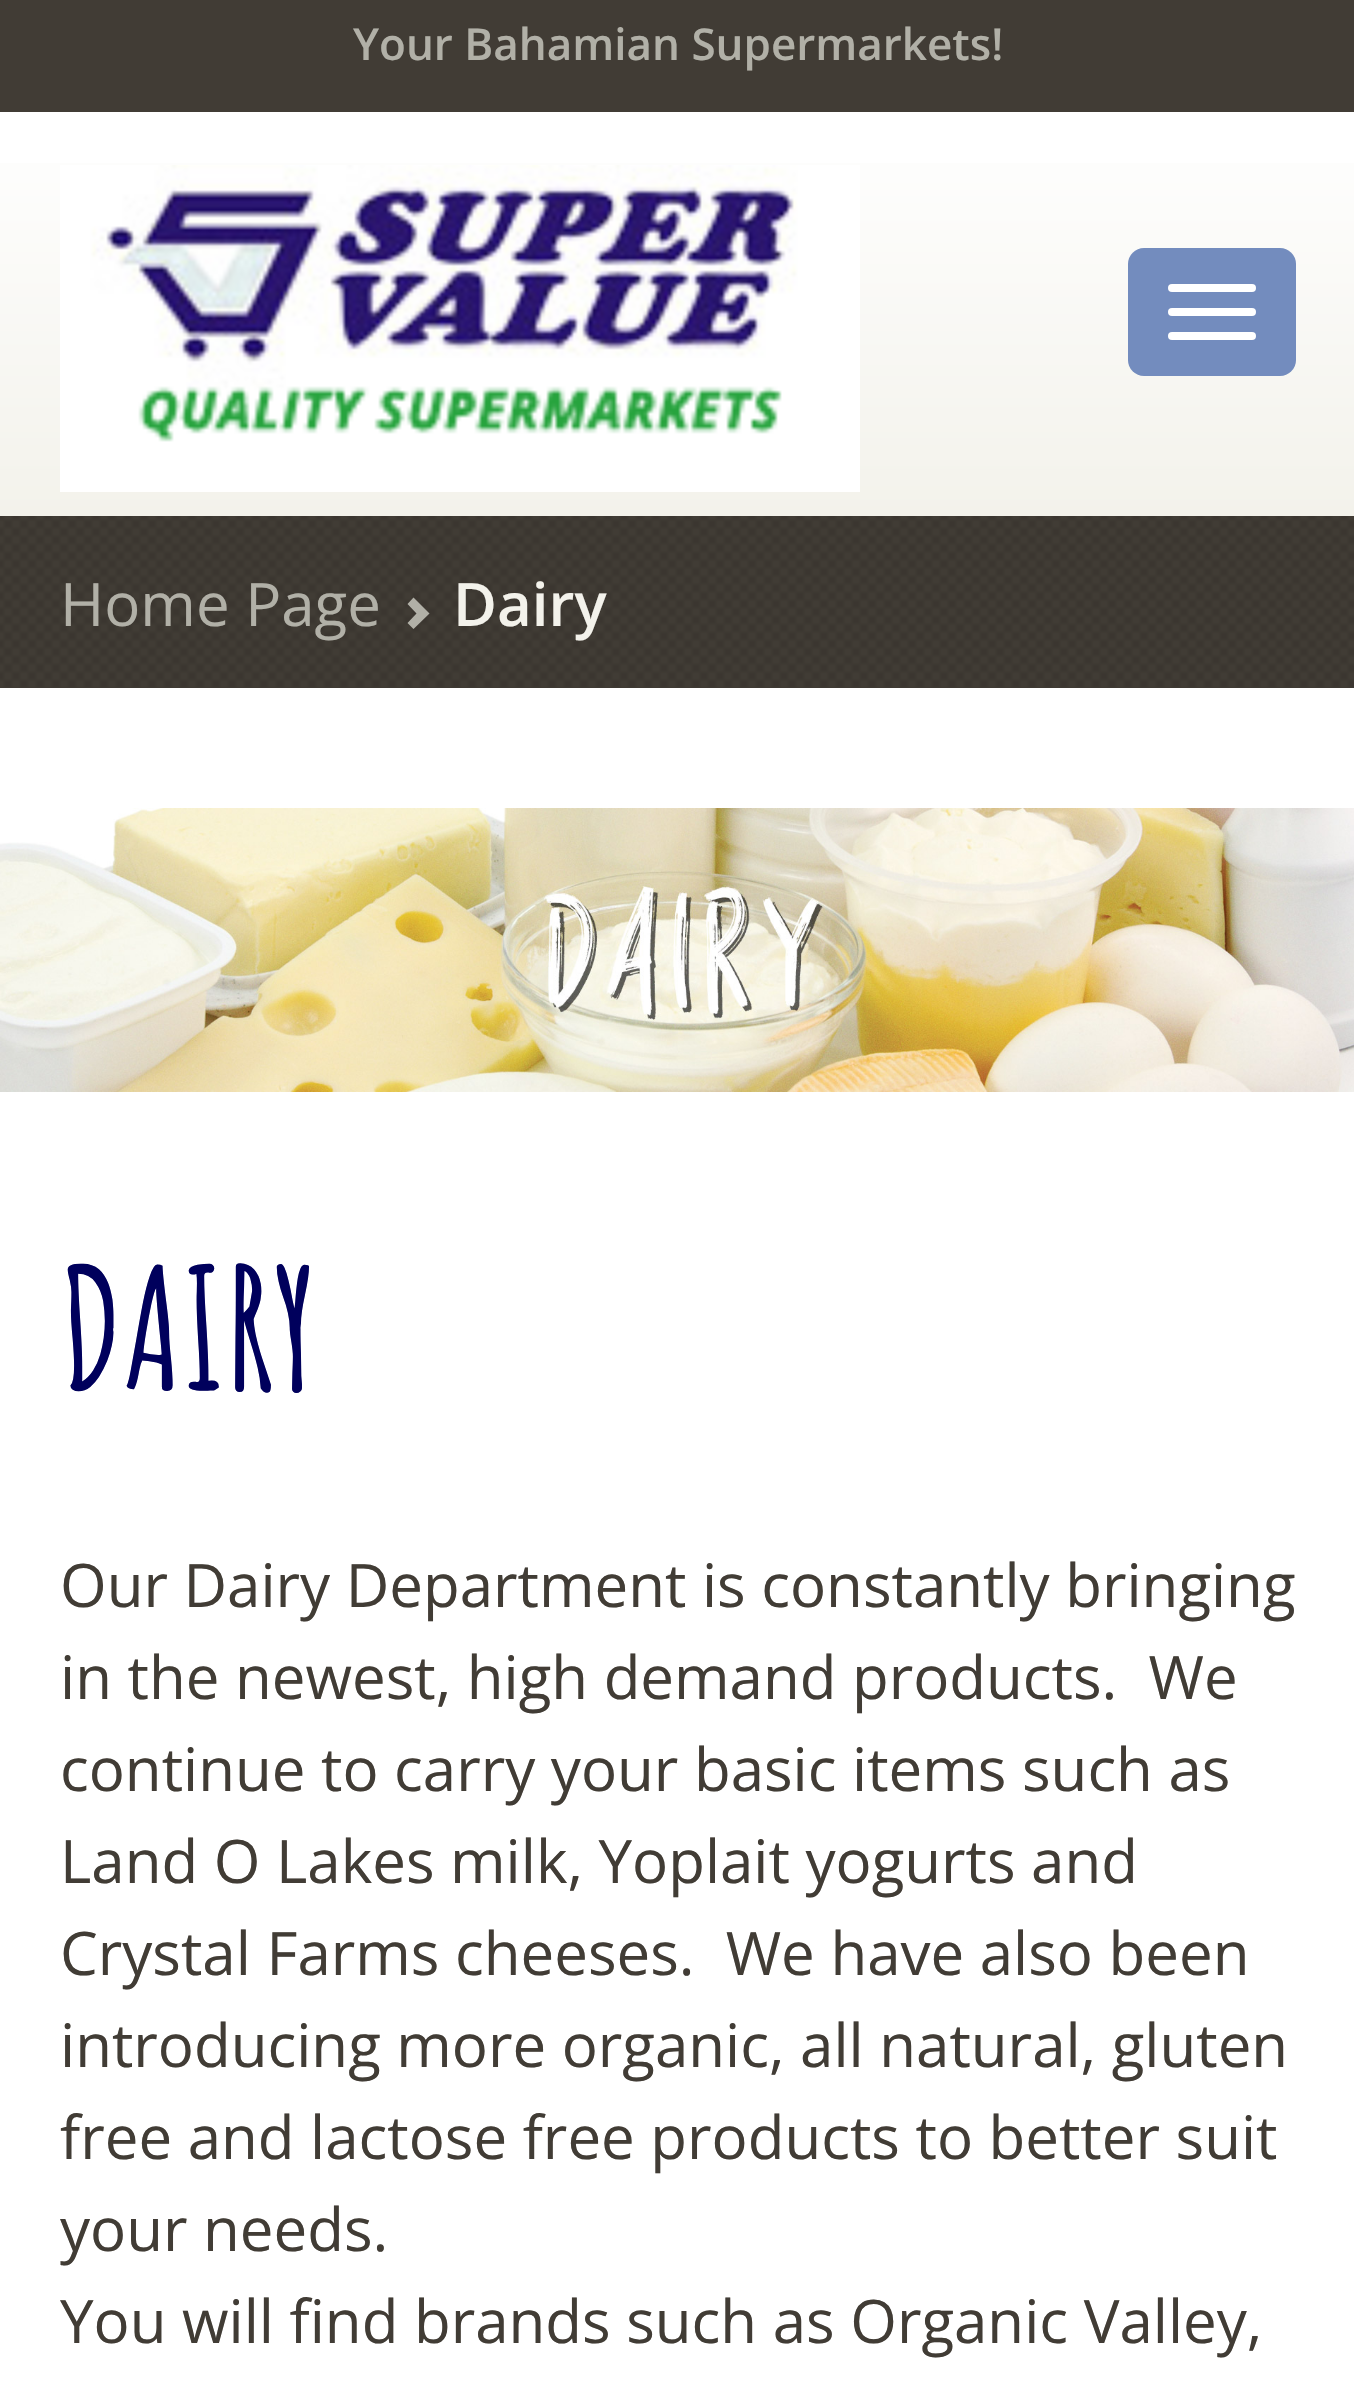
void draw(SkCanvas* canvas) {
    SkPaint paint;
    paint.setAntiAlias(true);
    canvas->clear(0xFFFFFFFF);
    paint.setColor(0xFF413C35);
    canvas->drawRect(SkRect::MakeXYWH(0, 0, 1354, 112), paint);
    SkFont font1(fontMgr->matchFamilyStyle("Open Sans", SkFontStyle(600, SkFontStyle::kNormal_Width, SkFontStyle::kUpright_Slant)), 44);
    font1.setSubpixel(true);
    paint.setColor(0xFFB1B0A7);
    canvas->drawString("Your Bahamian Supermarkets!", 353, 60, font1, paint);
    {
        const SkColor colors[] = {0xFFFFFFFF, 0xFFF3F2EB};
        const float stops[] = {0, 1};
        const SkPoint ends[] = {{678, 112}, {678, 516}};
        paint.setShader(SkGradientShader::MakeLinear(ends, colors, stops, 2, SkTileMode::kClamp));
        paint.setAlpha(255);
    }
    canvas->drawRect(SkRect::MakeXYWH(0, 163, 1354, 353), paint);
    canvas->drawImageRect(SkImages::DeferredFromEncodedData(SkData::MakeFromFileName("img1.png")), SkRect::MakeXYWH(60, 165, 800, 327), SkSamplingOptions());
    paint.setShader(nullptr);
    paint.setColor(0xFF738CBE);
    canvas->drawRoundRect(SkRect::MakeXYWH(1128, 248, 168, 128), 16, 16, paint);
    paint.setColor(0xFFFFFFFF);
    canvas->drawRoundRect(SkRect::MakeXYWH(1168, 284, 88, 8), 4, 4, paint);
    canvas->drawRoundRect(SkRect::MakeXYWH(1168, 308, 88, 8), 4, 4, paint);
    canvas->drawRoundRect(SkRect::MakeXYWH(1168, 332, 88, 8), 4, 4, paint);
    paint.setColor(0xFF413C35);
    canvas->drawRect(SkRect::MakeXYWH(0, 516, 1354, 172), paint);
    canvas->drawImageRect(SkImages::DeferredFromEncodedData(SkData::MakeFromFileName("img2.png")), SkRect::MakeXYWH(0, 516, 1354, 172), SkSamplingOptions());
    SkFont font2(fontMgr->matchFamilyStyle("Open Sans", SkFontStyle::Normal()), 60);
    font2.setSubpixel(true);
    paint.setColor(0xFFB1B0A7);
    canvas->drawString("Home Page", 60, 626, font2, paint);
    canvas->drawPath(SkPathBuilder().moveTo(407.5f, 623).lineTo(416.5f, 613.5f).lineTo(407.5f, 604).lineTo(413.5f, 597.5f).lineTo(429.5f, 613.5f).lineTo(413.5f, 629).close().detach(), paint);
    SkFont font3(fontMgr->matchFamilyStyle("Open Sans", SkFontStyle(600, SkFontStyle::kNormal_Width, SkFontStyle::kUpright_Slant)), 60);
    font3.setSubpixel(true);
    paint.setColor(0xFFF3F2EB);
    canvas->drawString("Dairy", 453, 626, font3, paint);
    canvas->drawImageRect(SkImages::DeferredFromEncodedData(SkData::MakeFromFileName("img3.png")), SkRect::MakeXYWH(0, 808, 1354, 284), SkSamplingOptions());
    SkFont font4(fontMgr->matchFamilyStyle("Amatic SC", SkFontStyle::Bold()), 168);
    font4.setSubpixel(true);
    paint.setColor(0xFF00005C);
    canvas->drawString("DAIRY", 60, 1391, font4, paint);
    paint.setColor(0xFF413C35);
    canvas->drawString("Our Dairy Department is constantly bringing", 60, 1607, font2, paint);
    canvas->drawString("in the newest, high demand products.  We", 60, 1699, font2, paint);
    canvas->drawString("continue to carry your basic items such as", 60, 1791, font2, paint);
    canvas->drawString("Land O Lakes milk, Yoplait yogurts and", 60, 1883, font2, paint);
    canvas->drawString("Crystal Farms cheeses.  We have also been", 60, 1975, font2, paint);
    canvas->drawString("introducing more organic, all natural, gluten", 60, 2067, font2, paint);
    canvas->drawString("free and lactose free products to better suit", 60, 2159, font2, paint);
    canvas->drawString("your needs.", 60, 2251, font2, paint);
    canvas->drawString("You will find brands such as Organic Valley,", 60, 2343, font2, paint);
}
